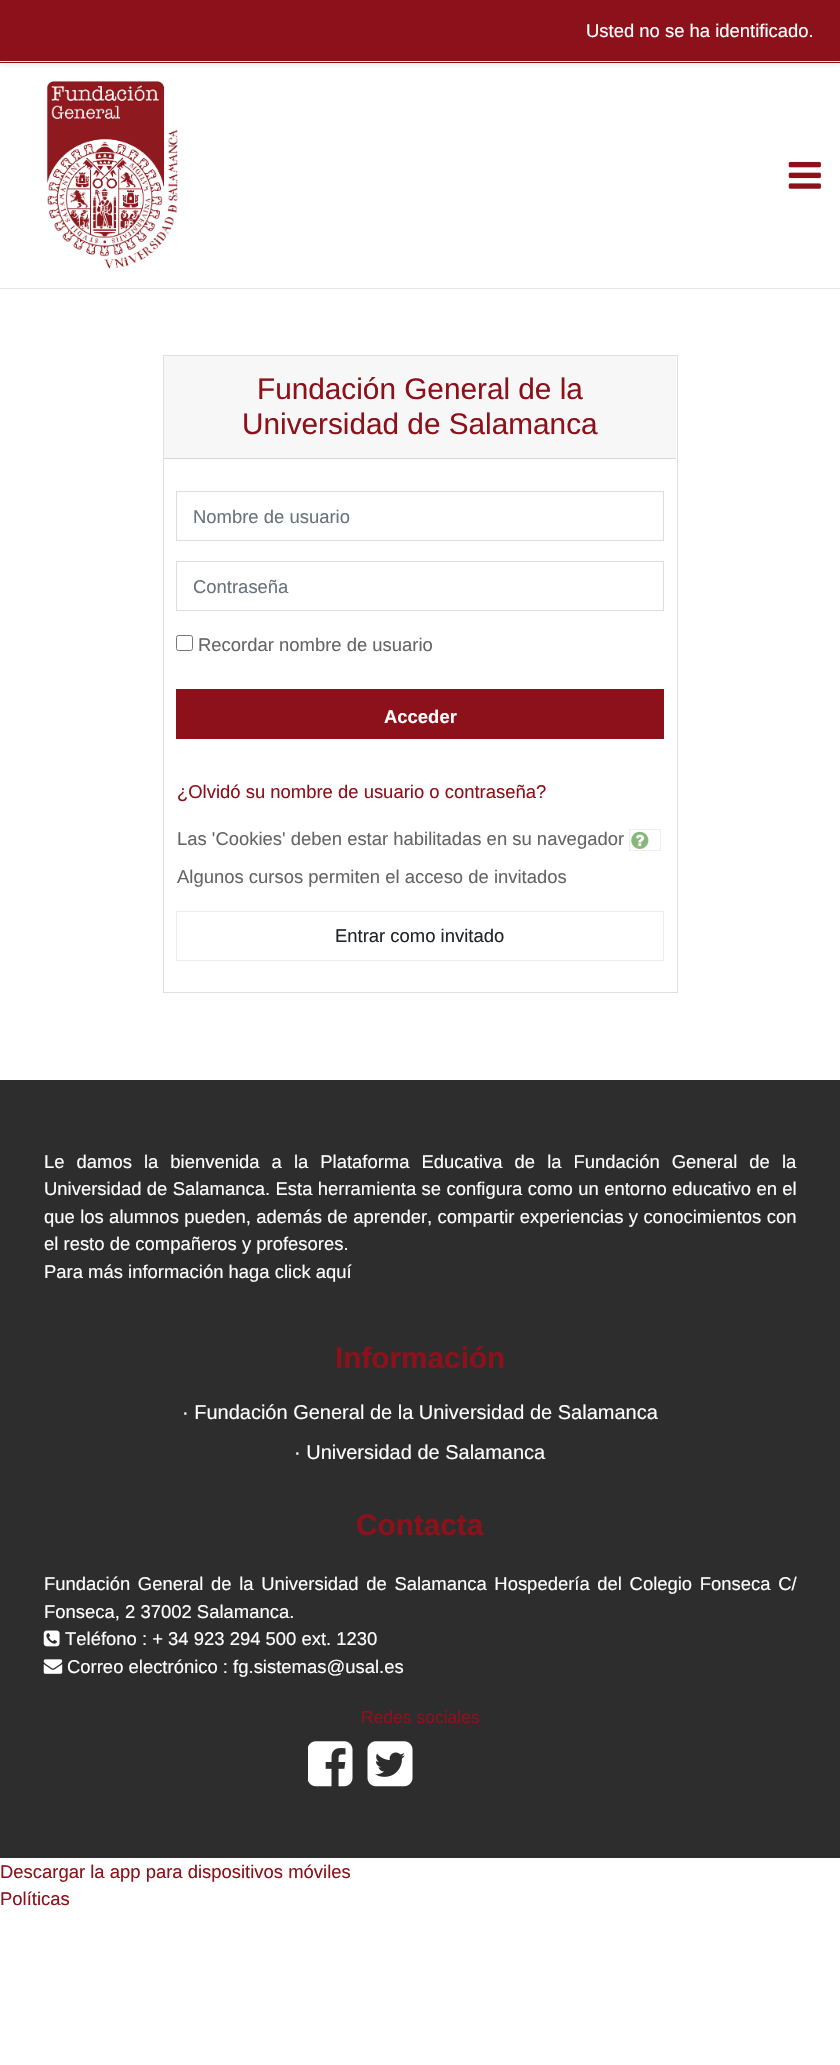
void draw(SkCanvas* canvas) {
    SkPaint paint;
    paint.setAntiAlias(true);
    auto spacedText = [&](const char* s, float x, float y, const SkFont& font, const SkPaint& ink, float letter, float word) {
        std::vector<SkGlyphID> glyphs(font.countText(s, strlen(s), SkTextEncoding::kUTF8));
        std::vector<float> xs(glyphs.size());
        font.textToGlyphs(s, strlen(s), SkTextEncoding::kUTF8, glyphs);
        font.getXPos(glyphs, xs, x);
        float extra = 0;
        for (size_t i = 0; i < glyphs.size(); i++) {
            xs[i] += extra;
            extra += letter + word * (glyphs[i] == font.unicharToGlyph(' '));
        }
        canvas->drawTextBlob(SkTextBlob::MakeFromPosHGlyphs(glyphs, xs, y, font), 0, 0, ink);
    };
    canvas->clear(0xFFFFFFFF);
    paint.setColor(0x14000000);
    paint.setMaskFilter(SkMaskFilter::MakeBlur(kNormal_SkBlurStyle, 2.5f));
    canvas->drawRect(SkRect::MakeXYWH(0, 3, 840, 62), paint);
    paint.setMaskFilter(nullptr);
    paint.setColor(0xFF8D111B);
    canvas->drawRect(SkRect::MakeXYWH(0, 0, 840, 63), paint);
    paint.setColor(0xFFE8E3E3);
    canvas->drawRect(SkRect::MakeXYWH(0, 61, 840, 1), paint);
    SkFont font1(fontMgr->matchFamilyStyle("Liberation Sans", SkFontStyle::Normal()), 18.45f);
    font1.setSubpixel(true);
    paint.setColor(0xFFFFFFFF);
    canvas->drawString("Usted no se ha identificado.", 586, 37, font1, paint);
    paint.setColor(0xFFE8E3E3);
    canvas->drawRect(SkRect::MakeXYWH(0, 288, 840, 1), paint);
    canvas->drawImageRect(SkImages::DeferredFromEncodedData(SkData::MakeFromFileName("img1.png")), SkRect::MakeXYWH(47, 81, 131, 188), SkSamplingOptions());
    canvas->drawImageRect(SkImages::DeferredFromEncodedData(SkData::MakeFromFileName("img2.png")), SkRect::MakeXYWH(788, 161, 33, 28), SkSamplingOptions());
    paint.setStyle(SkPaint::kStroke_Style);
    paint.setStrokeWidth(1);
    paint.setColor(0xFFDFDFDF);
    canvas->drawRect(SkRect::MakeXYWH(163.5f, 355.5f, 514, 637), paint);
    paint.setStyle(SkPaint::kFill_Style);
    paint.setColor(0xFFF7F7F7);
    canvas->drawRect(SkRect::MakeXYWH(164, 356, 512, 102), paint);
    paint.setColor(0xFFD8D8D8);
    canvas->drawRect(SkRect::MakeXYWH(164, 458, 512, 1), paint);
    SkFont font2(fontMgr->matchFamilyStyle("Liberation Sans", SkFontStyle::Normal()), 29.75f);
    font2.setSubpixel(true);
    paint.setColor(0xFF8D111A);
    canvas->drawString("Fundación General de la", 257, 399, font2, paint);
    canvas->drawString("Universidad de Salamanca", 242, 434, font2, paint);
    paint.setStyle(SkPaint::kStroke_Style);
    paint.setColor(0xFFDEDEDE);
    canvas->drawRect(SkRect::MakeXYWH(176.5f, 491.5f, 487, 49), paint);
    paint.setStyle(SkPaint::kFill_Style);
    paint.setColor(0xFF6A737B);
    canvas->drawString("Nombre de usuario", 193, 523, font1, paint);
    paint.setStyle(SkPaint::kStroke_Style);
    paint.setColor(0xFFDEDEDE);
    canvas->drawRect(SkRect::MakeXYWH(176.5f, 561.5f, 487, 49), paint);
    paint.setStyle(SkPaint::kFill_Style);
    paint.setColor(0xFF6A737B);
    canvas->drawString("Contraseña", 193, 593, font1, paint);
    paint.setStyle(SkPaint::kStroke_Style);
    paint.setColor(0xFF767676);
    canvas->drawRoundRect(SkRect::MakeXYWH(176.5f, 635.5f, 16, 15), 2, 2, paint);
    paint.setStyle(SkPaint::kFill_Style);
    paint.setColor(0xFF656565);
    canvas->drawString("Recordar nombre de usuario", 198, 651, font1, paint);
    paint.setColor(0xFF8D111A);
    canvas->drawRect(SkRect::MakeXYWH(176, 689, 488, 50), paint);
    SkFont font3(fontMgr->matchFamilyStyle("Liberation Sans", SkFontStyle::Bold()), 18.45f);
    font3.setSubpixel(true);
    paint.setColor(0xFFFFFFFF);
    canvas->drawString("Acceder", 384, 723, font3, paint);
    paint.setColor(0xFF8D111A);
    canvas->drawString("¿Olvidó su nombre de usuario o contraseña?", 177, 798, font1, paint);
    paint.setColor(0xFF656565);
    canvas->drawString("Las 'Cookies' deben estar habilitadas en su navegador", 177, 845, font1, paint);
    paint.setStyle(SkPaint::kStroke_Style);
    paint.setColor(0xFFEEEEEE);
    canvas->drawRect(SkRect::MakeXYWH(629.5f, 829.5f, 31, 21), paint);
    canvas->drawImageRect(SkImages::DeferredFromEncodedData(SkData::MakeFromFileName("img3.png")), SkRect::MakeXYWH(631, 831, 18, 18), SkSamplingOptions());
    paint.setStyle(SkPaint::kFill_Style);
    paint.setColor(0xFF656565);
    canvas->drawString("Algunos cursos permiten el acceso de invitados", 177, 883, font1, paint);
    paint.setStyle(SkPaint::kStroke_Style);
    paint.setColor(0xFFEEEEEE);
    canvas->drawRect(SkRect::MakeXYWH(176.5f, 911.5f, 487, 49), paint);
    paint.setStyle(SkPaint::kFill_Style);
    paint.setColor(0xFF212529);
    canvas->drawString("Entrar como invitado", 335, 942, font1, paint);
    paint.setColor(0xFF2D2D2D);
    canvas->drawRect(SkRect::MakeXYWH(0, 1080, 840, 778), paint);
    paint.setColor(0xFFFFFFFF);
    spacedText("Le damos la bienvenida a la Plataforma Educativa de la Fundación General de la", 44, 1168, font1, paint, 0, 6.9f);
    spacedText("Universidad de Salamanca. Esta herramienta se configura como un entorno educativo en el", 44, 1195, font1, paint, 0, 0.25f);
    spacedText("que los alumnos pueden, además de aprender, compartir experiencias y conocimientos con", 44, 1223, font1, paint, 0, 0.25f);
    canvas->drawString("el resto de compañeros y profesores.", 44, 1250, font1, paint);
    canvas->drawString("Para más información haga click aquí", 44, 1278, font1, paint);
    SkFont font4(fontMgr->matchFamilyStyle("Liberation Sans", SkFontStyle::Bold()), 29.75f);
    font4.setSubpixel(true);
    paint.setColor(0xFF8D111A);
    canvas->drawString("Información", 335, 1368, font4, paint);
    SkFont font5(fontMgr->matchFamilyStyle("Liberation Sans", SkFontStyle::Normal()), 20);
    font5.setSubpixel(true);
    paint.setColor(0xFFFFFFFF);
    canvas->drawString("· Fundación General de la Universidad de Salamanca", 182, 1419, font5, paint);
    canvas->drawString("· Universidad de Salamanca", 294, 1459, font5, paint);
    paint.setColor(0xFF8D111A);
    canvas->drawString("Contacta", 356, 1535, font4, paint);
    paint.setColor(0xFFFFFFFF);
    spacedText("Fundación General de la Universidad de Salamanca Hospedería del Colegio Fonseca C/", 44, 1590, font1, paint, 0, 2.5f);
    canvas->drawString("Fonseca, 2 37002 Salamanca.", 44, 1618, font1, paint);
    canvas->drawImageRect(SkImages::DeferredFromEncodedData(SkData::MakeFromFileName("img4.png")), SkRect::MakeXYWH(43, 1630, 17, 17), SkSamplingOptions());
    canvas->drawString("Teléfono : + 34 923 294 500 ext. 1230", 65, 1645, font1, paint);
    canvas->drawImageRect(SkImages::DeferredFromEncodedData(SkData::MakeFromFileName("img5.png")), SkRect::MakeXYWH(43, 1659, 20, 15), SkSamplingOptions());
    canvas->drawString("Correo electrónico : fg.sistemas@usal.es", 67, 1673, font1, paint);
    SkFont font6(fontMgr->matchFamilyStyle("Liberation Sans", SkFontStyle::Normal()), 17.5f);
    font6.setSubpixel(true);
    paint.setColor(0xFF8D111A);
    canvas->drawString("Redes sociales", 361, 1723, font6, paint);
    canvas->drawImageRect(SkImages::DeferredFromEncodedData(SkData::MakeFromFileName("img6.png")), SkRect::MakeXYWH(308, 1741, 45, 46), SkSamplingOptions());
    canvas->drawImageRect(SkImages::DeferredFromEncodedData(SkData::MakeFromFileName("img7.png")), SkRect::MakeXYWH(367, 1741, 46, 46), SkSamplingOptions());
    canvas->drawString("Descargar la app para dispositivos móviles", 0, 1878, font1, paint);
    canvas->drawString("Políticas", 0, 1905, font1, paint);
}
